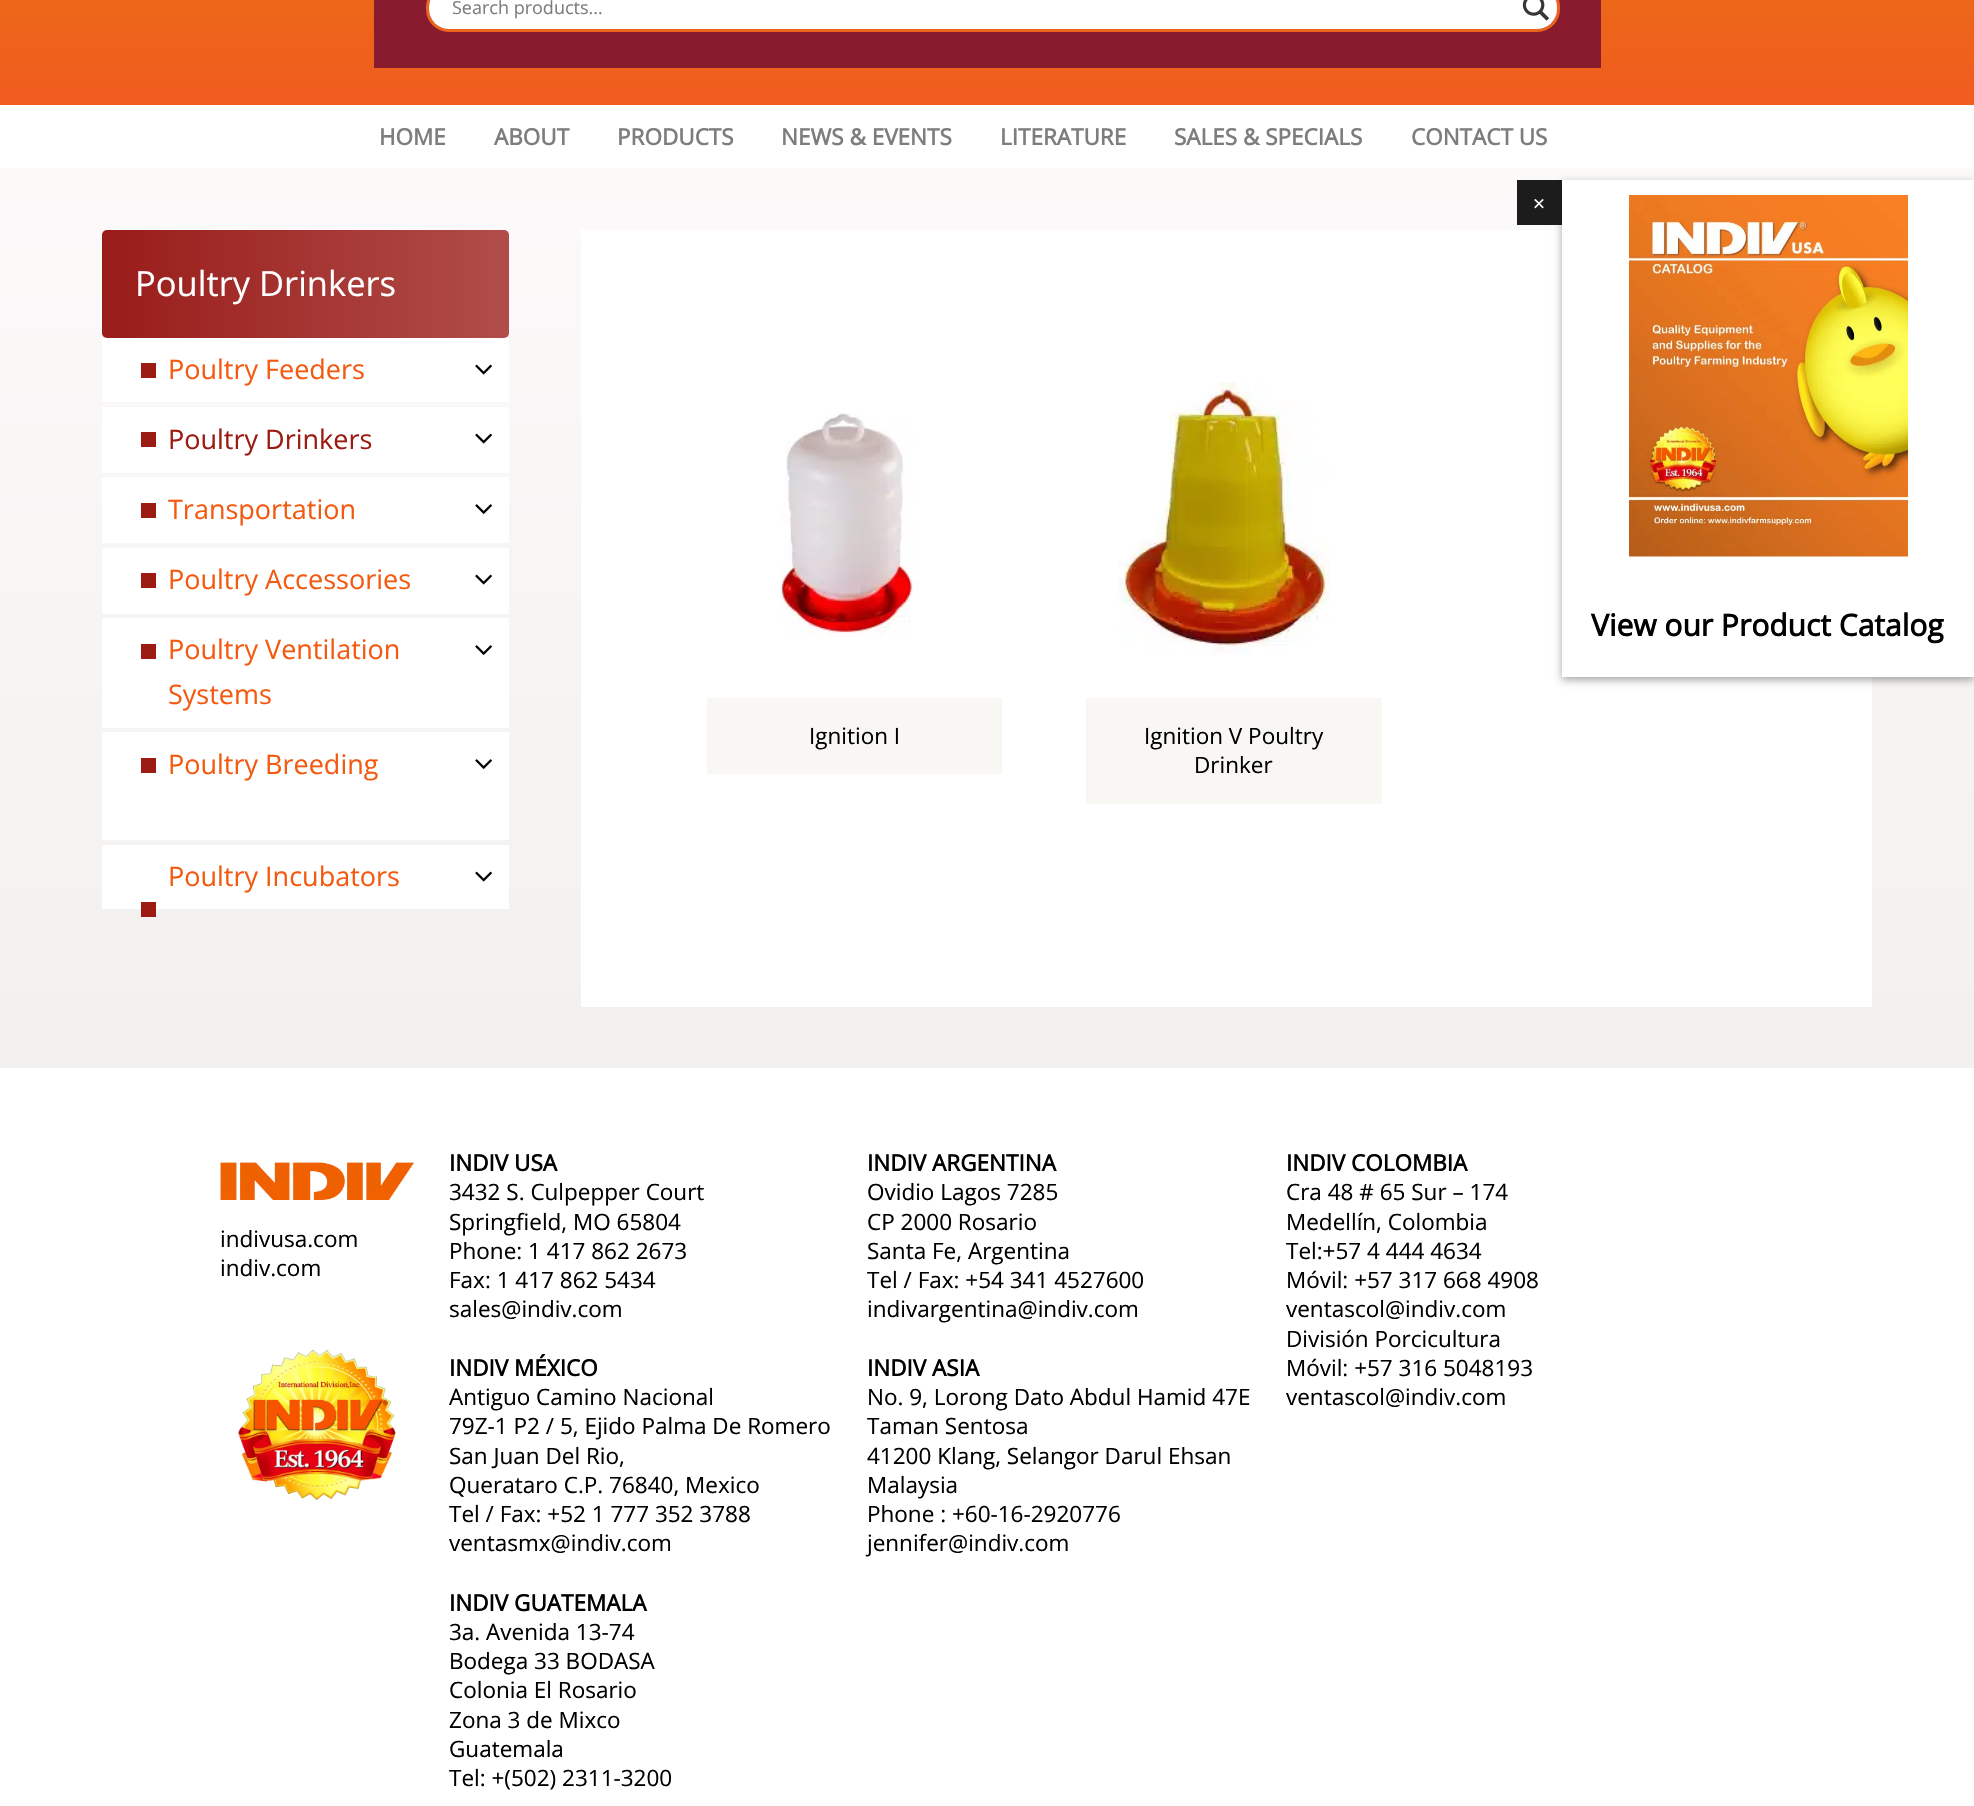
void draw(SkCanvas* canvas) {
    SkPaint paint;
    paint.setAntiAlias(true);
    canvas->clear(0xFFFFFFFF);
    {
        const SkColor colors[] = {0xFFE8E6E3, 0xFFFFFDFD};
        const float stops[] = {0, 1};
        const SkPoint ends[] = {{987, 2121}, {987, -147}};
        paint.setShader(SkGradientShader::MakeLinear(ends, colors, stops, 2, SkTileMode::kClamp));
        paint.setAlpha(255);
    }
    canvas->drawRect(SkRect::MakeXYWH(0, 168, 1974, 900), paint);
    {
        const SkColor colors[] = {0xFFE5780F, 0xFFF15B1F};
        const float stops[] = {0, 1};
        const SkPoint ends[] = {{987, -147}, {987, 105}};
        paint.setShader(SkGradientShader::MakeLinear(ends, colors, stops, 2, SkTileMode::kClamp));
        paint.setAlpha(255);
    }
    canvas->drawRect(SkRect::MakeXYWH(0, 0, 1974, 105), paint);
    paint.setShader(nullptr);
    paint.setColor(0xFF881B2D);
    canvas->drawRect(SkRect::MakeXYWH(374, 0, 1227, 68), paint);
    paint.setStyle(SkPaint::kStroke_Style);
    paint.setStrokeWidth(3);
    paint.setColor(0xFFED651A);
    canvas->drawRoundRect(SkRect::MakeXYWH(427.5f, -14.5f, 1131, 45), 21.5f, 21.5f, paint);
    paint.setStyle(SkPaint::kFill_Style);
    paint.setColor(0xFFFFFFFF);
    canvas->drawRoundRect(SkRect::MakeXYWH(429, -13, 1128, 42), 20, 20, paint);
    SkFont font1(fontMgr->matchFamilyStyle("Open Sans", SkFontStyle::Normal()), 18);
    font1.setSubpixel(true);
    paint.setColor(0xFF7D7D7D);
    canvas->drawString("Search products...", 452, 14, font1, paint);
    canvas->save();
    canvas->clipRect(SkRect::MakeXYWH(1515, 0, 42, 29));
    paint.setColor(0xA3FFFFFF);
    canvas->drawPath(SkPathBuilder(SkPathFillType::kEvenOdd).moveTo(1514, -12).lineTo(1514, 29).lineTo(1366, 29).lineTo(1366, -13).lineTo(1537, -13).lineTo(1543, -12).close().moveTo(1556, 15).cubicTo(1557, 11, 1557, 5, 1556, 1).close().detach(), paint);
    canvas->restore();
    canvas->drawImageRect(SkImages::DeferredFromEncodedData(SkData::MakeFromFileName("img1.png")), SkRect::MakeXYWH(1522, 0, 28, 21), SkSamplingOptions());
    SkFont font2(fontMgr->matchFamilyStyle("Open Sans", SkFontStyle::Bold()), 22.5f);
    font2.setSubpixel(true);
    paint.setColor(0xFF7D7D7D);
    canvas->drawString("HOME", 379, 145, font2, paint);
    canvas->drawString("ABOUT", 494, 145, font2, paint);
    canvas->drawString("PRODUCTS", 617, 145, font2, paint);
    canvas->drawString("NEWS & EVENTS", 781, 145, font2, paint);
    canvas->drawString("LITERATURE", 1000, 145, font2, paint);
    canvas->drawString("SALES & SPECIALS", 1174, 145, font2, paint);
    canvas->drawString("CONTACT US", 1411, 145, font2, paint);
    {
        const SkColor colors[] = {0xFF991C19, 0xFFB04D4A};
        const float stops[] = {0, 1};
        const SkPoint ends[] = {{102, 284}, {509, 284}};
        paint.setShader(SkGradientShader::MakeLinear(ends, colors, stops, 2, SkTileMode::kClamp));
        paint.setAlpha(255);
    }
    canvas->drawRoundRect(SkRect::MakeXYWH(102, 230, 407, 108), 5, 5, paint);
    SkFont font3(fontMgr->matchFamilyStyle("Open Sans", SkFontStyle::Normal()), 34.5f);
    font3.setSubpixel(true);
    paint.setShader(nullptr);
    paint.setColor(0xFFFFFFFF);
    canvas->drawString("Poultry Drinkers", 135, 296, font3, paint);
    canvas->drawRect(SkRect::MakeXYWH(102, 338, 407, 64), paint);
    paint.setColor(0xFF9C1B12);
    canvas->drawRect(SkRect::MakeXYWH(141, 363, 15, 15), paint);
    SkFont font4(fontMgr->matchFamilyStyle("Open Sans", SkFontStyle::Normal()), 27);
    font4.setSubpixel(true);
    paint.setColor(0xFFF45910);
    canvas->drawString("Poultry Feeders", 168, 379, font4, paint);
    canvas->drawImageRect(SkImages::DeferredFromEncodedData(SkData::MakeFromFileName("img2.png")), SkRect::MakeXYWH(475, 364, 17, 11), SkSamplingOptions());
    paint.setColor(0xFFFFFFFF);
    canvas->drawRect(SkRect::MakeXYWH(102, 407, 407, 66), paint);
    paint.setColor(0xFF9C1B12);
    canvas->drawRect(SkRect::MakeXYWH(141, 432, 15, 15), paint);
    canvas->drawString("Poultry Drinkers", 168, 449, font4, paint);
    canvas->drawImageRect(SkImages::DeferredFromEncodedData(SkData::MakeFromFileName("img2.png")), SkRect::MakeXYWH(475, 433, 17, 11), SkSamplingOptions());
    paint.setColor(0xFFFFFFFF);
    canvas->drawRect(SkRect::MakeXYWH(102, 477, 407, 66), paint);
    paint.setColor(0xFF9C1B12);
    canvas->drawRect(SkRect::MakeXYWH(141, 503, 15, 15), paint);
    paint.setColor(0xFFF45910);
    canvas->drawString("Transportation", 168, 519, font4, paint);
    canvas->drawImageRect(SkImages::DeferredFromEncodedData(SkData::MakeFromFileName("img3.png")), SkRect::MakeXYWH(475, 504, 17, 10), SkSamplingOptions());
    paint.setColor(0xFFFFFFFF);
    canvas->drawRect(SkRect::MakeXYWH(102, 548, 407, 66), paint);
    paint.setColor(0xFF9C1B12);
    canvas->drawRect(SkRect::MakeXYWH(141, 573, 15, 15), paint);
    paint.setColor(0xFFF45910);
    canvas->drawString("Poultry Accessories", 168, 589, font4, paint);
    canvas->drawImageRect(SkImages::DeferredFromEncodedData(SkData::MakeFromFileName("img2.png")), SkRect::MakeXYWH(475, 574, 17, 11), SkSamplingOptions());
    paint.setColor(0xFFFFFFFF);
    canvas->drawRect(SkRect::MakeXYWH(102, 618, 407, 110), paint);
    paint.setColor(0xFF9C1B12);
    canvas->drawRect(SkRect::MakeXYWH(141, 644, 15, 15), paint);
    paint.setColor(0xFFF45910);
    canvas->drawString("Poultry Ventilation", 168, 659, font4, paint);
    canvas->drawImageRect(SkImages::DeferredFromEncodedData(SkData::MakeFromFileName("img3.png")), SkRect::MakeXYWH(475, 645, 17, 10), SkSamplingOptions());
    canvas->drawString("Systems", 168, 704, font4, paint);
    paint.setColor(0xFFFFFFFF);
    canvas->drawRect(SkRect::MakeXYWH(102, 732, 407, 108), paint);
    paint.setColor(0xFF9C1B12);
    canvas->drawRect(SkRect::MakeXYWH(141, 758, 15, 15), paint);
    paint.setColor(0xFFF45910);
    canvas->drawString("Poultry Breeding", 168, 774, font4, paint);
    canvas->drawImageRect(SkImages::DeferredFromEncodedData(SkData::MakeFromFileName("img3.png")), SkRect::MakeXYWH(475, 759, 17, 10), SkSamplingOptions());
    paint.setColor(0xFFFFFFFF);
    canvas->drawRect(SkRect::MakeXYWH(102, 845, 407, 64), paint);
    paint.setColor(0xFFF45910);
    canvas->drawString("Poultry Incubators", 168, 886, font4, paint);
    canvas->drawImageRect(SkImages::DeferredFromEncodedData(SkData::MakeFromFileName("img2.png")), SkRect::MakeXYWH(475, 871, 17, 11), SkSamplingOptions());
    paint.setColor(0xFF9C1B12);
    canvas->drawRect(SkRect::MakeXYWH(141, 902, 15, 15), paint);
    paint.setColor(0xFFFFFFFF);
    canvas->drawRect(SkRect::MakeXYWH(581, 230, 1291, 777), paint);
    canvas->drawImageRect(SkImages::DeferredFromEncodedData(SkData::MakeFromFileName("img4.png")), SkRect::MakeXYWH(780, 412, 140, 225), SkSamplingOptions());
    paint.setColor(0xFFF8F7F4);
    canvas->drawRect(SkRect::MakeXYWH(707, 698, 295, 76), paint);
    SkFont font5(fontMgr->matchFamilyStyle("Open Sans", SkFontStyle::Normal()), 22.5f);
    font5.setSubpixel(true);
    paint.setColor(0xFF000000);
    canvas->drawString("Ignition I", 809, 744, font5, paint);
    canvas->drawImageRect(SkImages::DeferredFromEncodedData(SkData::MakeFromFileName("img5.png")), SkRect::MakeXYWH(1118, 382, 212, 273), SkSamplingOptions());
    paint.setColor(0xFFF8F7F4);
    canvas->drawRect(SkRect::MakeXYWH(1086, 698, 296, 106), paint);
    paint.setColor(0xFF000000);
    canvas->drawString("Ignition V Poultry", 1144, 744, font5, paint);
    canvas->drawString("Drinker", 1194, 773, font5, paint);
    canvas->drawImageRect(SkImages::DeferredFromEncodedData(SkData::MakeFromFileName("img6.png")), SkRect::MakeXYWH(220, 1162, 194, 38), SkSamplingOptions());
    canvas->drawString("indivusa.com", 220, 1247, font5, paint);
    canvas->drawString("indiv.com", 220, 1276, font5, paint);
    canvas->drawImageRect(SkImages::DeferredFromEncodedData(SkData::MakeFromFileName("img7.png")), SkRect::MakeXYWH(238, 1349, 158, 151), SkSamplingOptions());
    canvas->drawString("INDIV USA", 449, 1171, font2, paint);
    canvas->drawString("3432 S. Culpepper Court", 449, 1200, font5, paint);
    canvas->drawString("Springfield, MO 65804", 449, 1230, font5, paint);
    canvas->drawString("Phone: 1 417 862 2673", 449, 1259, font5, paint);
    canvas->drawString("Fax: 1 417 862 5434", 449, 1288, font5, paint);
    canvas->drawString("sales@indiv.com", 449, 1317, font5, paint);
    canvas->drawString("INDIV MÉXICO", 449, 1376, font2, paint);
    canvas->drawString("Antiguo Camino Nacional", 449, 1405, font5, paint);
    canvas->drawString("79Z-1 P2 / 5, Ejido Palma De Romero", 449, 1434, font5, paint);
    canvas->drawString("San Juan Del Rio,", 449, 1464, font5, paint);
    canvas->drawString("Querataro C.P. 76840, Mexico", 449, 1493, font5, paint);
    canvas->drawString("Tel / Fax: +52 1 777 352 3788", 449, 1522, font5, paint);
    canvas->drawString("ventasmx@indiv.com", 449, 1551, font5, paint);
    canvas->drawString("INDIV ARGENTINA", 867, 1171, font2, paint);
    canvas->drawString("Ovidio Lagos 7285", 867, 1200, font5, paint);
    canvas->drawString("CP 2000 Rosario", 867, 1230, font5, paint);
    canvas->drawString("Santa Fe, Argentina", 867, 1259, font5, paint);
    canvas->drawString("Tel / Fax: +54 341 4527600", 867, 1288, font5, paint);
    canvas->drawString("indivargentina@indiv.com", 867, 1317, font5, paint);
    canvas->drawString("INDIV ASIA", 867, 1376, font2, paint);
    canvas->drawString("No. 9, Lorong Dato Abdul Hamid 47E", 867, 1405, font5, paint);
    canvas->drawString("Taman Sentosa", 867, 1434, font5, paint);
    canvas->drawString("41200 Klang, Selangor Darul Ehsan", 867, 1464, font5, paint);
    canvas->drawString("Malaysia", 867, 1493, font5, paint);
    canvas->drawString("Phone : +60-16-2920776", 867, 1522, font5, paint);
    canvas->drawString("jennifer@indiv.com", 867, 1551, font5, paint);
    canvas->drawString("INDIV COLOMBIA", 1286, 1171, font2, paint);
    canvas->drawString("Cra 48 # 65 Sur – 174", 1286, 1200, font5, paint);
    canvas->drawString("Medellín, Colombia", 1286, 1230, font5, paint);
    canvas->drawString("Tel:+57 4 444 4634", 1286, 1259, font5, paint);
    canvas->drawString("Móvil: +57 317 668 4908", 1286, 1288, font5, paint);
    canvas->drawString("ventascol@indiv.com", 1286, 1317, font5, paint);
    canvas->drawString("División Porcicultura", 1286, 1347, font5, paint);
    canvas->drawString("Móvil: +57 316 5048193", 1286, 1376, font5, paint);
    canvas->drawString("ventascol@indiv.com", 1286, 1405, font5, paint);
    canvas->drawString("INDIV GUATEMALA", 449, 1611, font2, paint);
    canvas->drawString("3a. Avenida 13-74", 449, 1640, font5, paint);
    canvas->drawString("Bodega 33 BODASA", 449, 1669, font5, paint);
    canvas->drawString("Colonia El Rosario", 449, 1698, font5, paint);
    canvas->drawString("Zona 3 de Mixco", 449, 1728, font5, paint);
    canvas->drawString("Guatemala", 449, 1757, font5, paint);
    canvas->drawString("Tel: +(502) 2311-3200", 449, 1786, font5, paint);
    paint.setColor(0x59000000);
    paint.setMaskFilter(SkMaskFilter::MakeBlur(kNormal_SkBlurStyle, 4));
    canvas->drawRect(SkRect::MakeXYWH(1562, 183, 412, 497), paint);
    paint.setMaskFilter(nullptr);
    paint.setColor(0xFF1C1C1C);
    canvas->drawRect(SkRect::MakeXYWH(1517, 180, 45, 45), paint);
    SkFont font6(fontMgr->matchFamilyStyle("Open Sans", SkFontStyle::Normal()), 21);
    font6.setSubpixel(true);
    paint.setColor(0xFFFFFFFF);
    canvas->drawString("×", 1533, 211, font6, paint);
    canvas->drawRect(SkRect::MakeXYWH(1562, 180, 412, 497), paint);
    canvas->drawImageRect(SkImages::DeferredFromEncodedData(SkData::MakeFromFileName("img8.png")), SkRect::MakeXYWH(1629, 195, 279, 362), SkSamplingOptions());
    SkFont font7(fontMgr->matchFamilyStyle("Open Sans", SkFontStyle::Bold()), 30);
    font7.setSubpixel(true);
    paint.setColor(0xFF000000);
    canvas->drawString("View our Product Catalog", 1591, 636, font7, paint);
}
